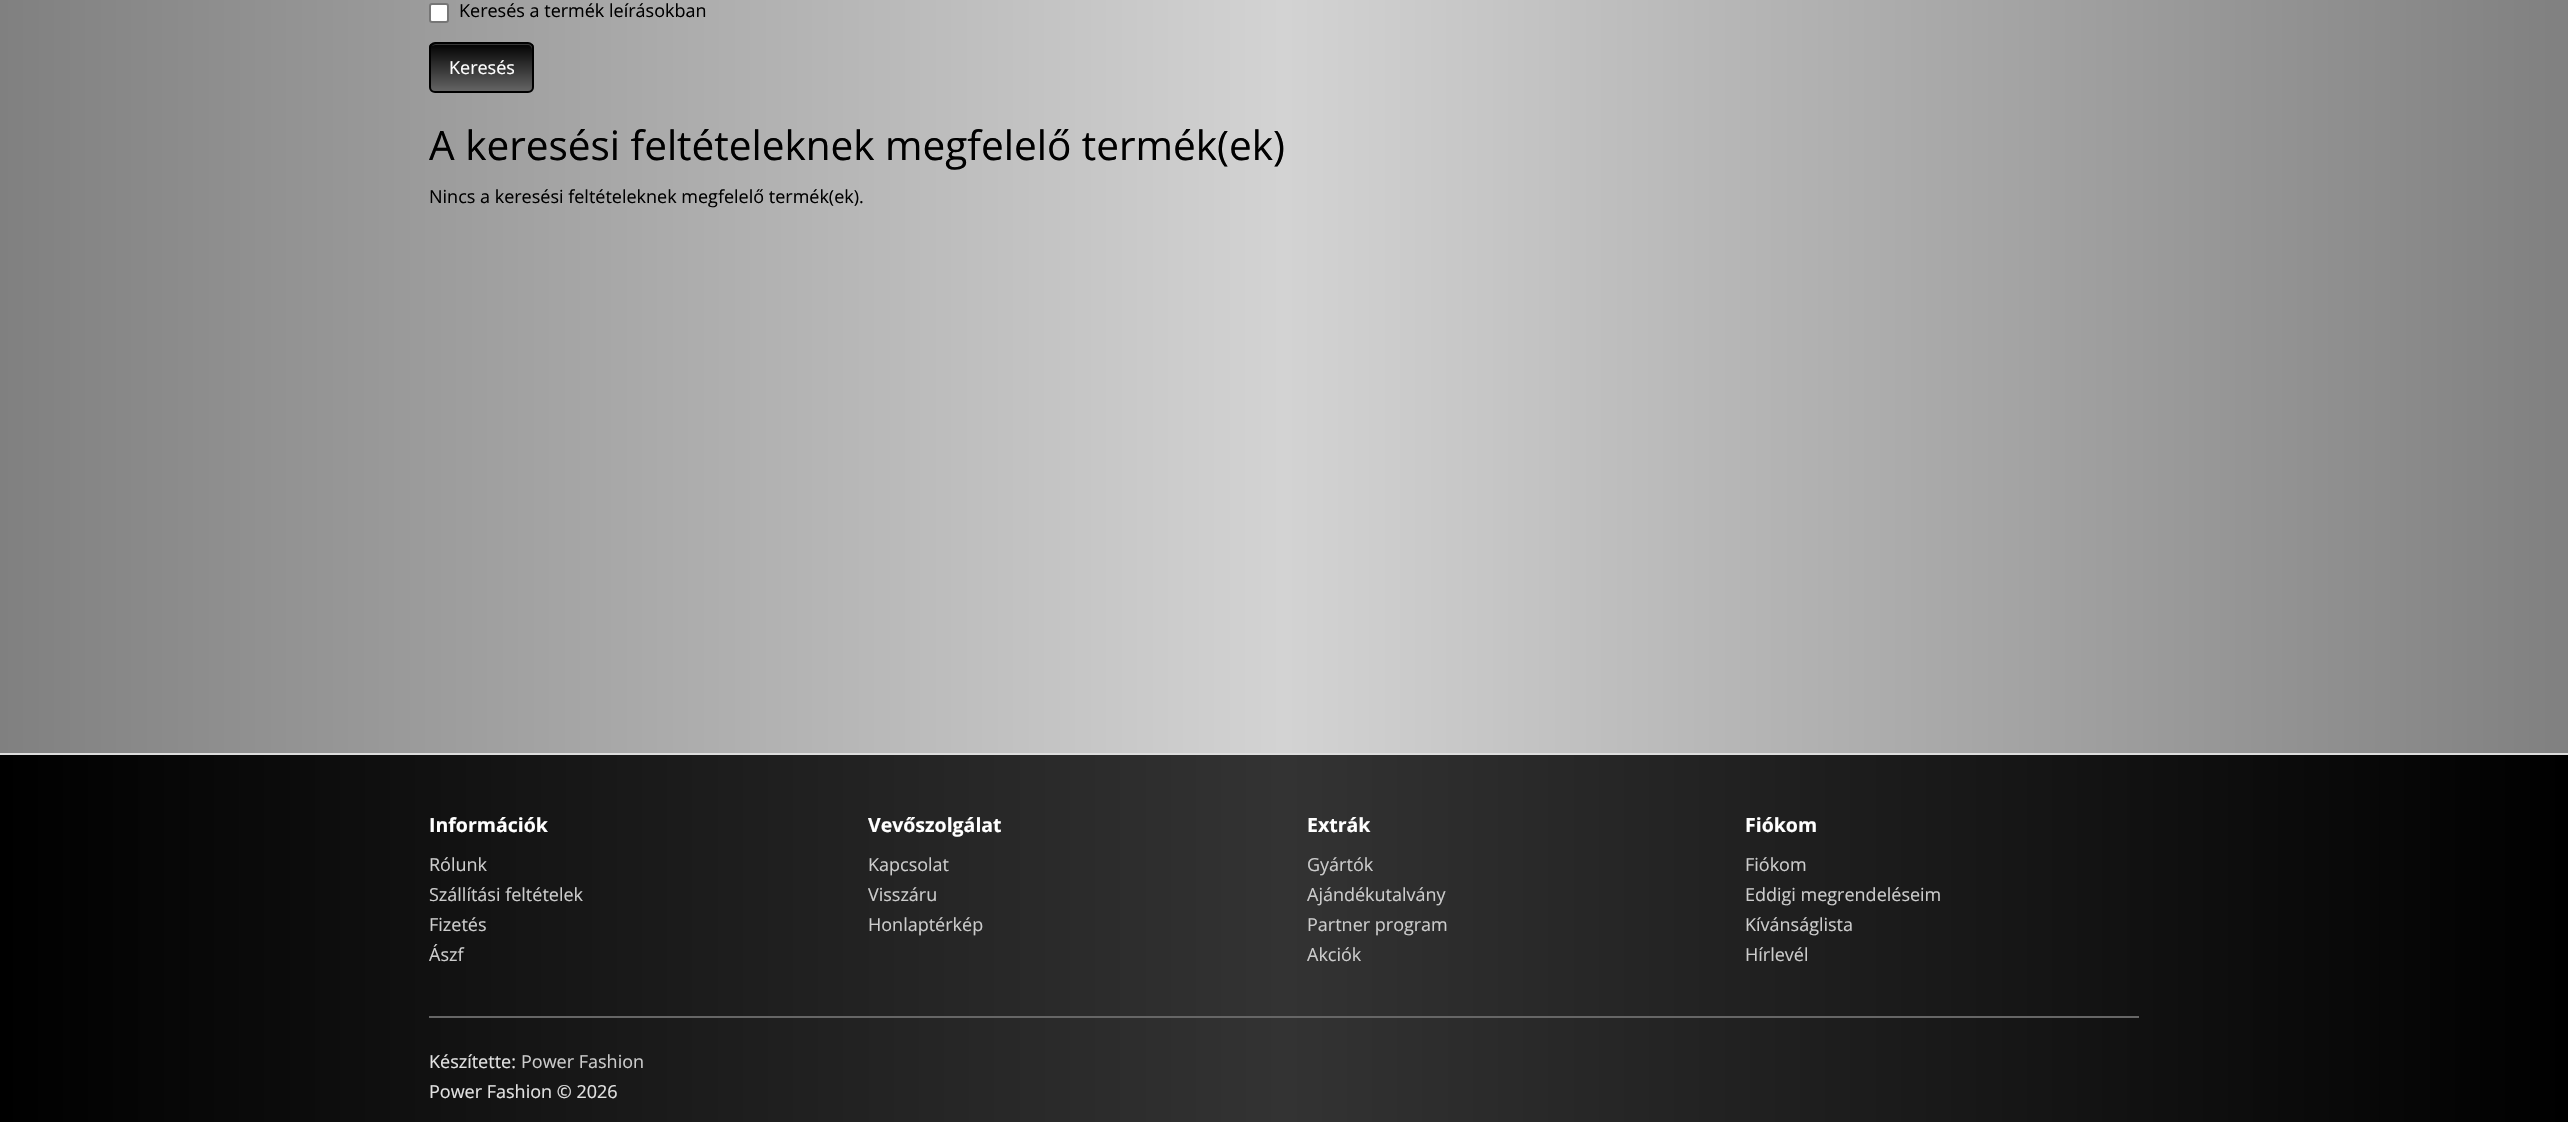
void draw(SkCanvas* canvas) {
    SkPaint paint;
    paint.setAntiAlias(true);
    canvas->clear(0xFFFFFFFF);
    {
        const SkColor colors[] = {0xFF808080, 0xFFD3D3D3, 0xFF808080};
        const float stops[] = {0, 0.5f, 1};
        const SkPoint ends[] = {{2568, 281}, {0, 281}};
        paint.setShader(SkGradientShader::MakeLinear(ends, colors, stops, 3, SkTileMode::kClamp));
        paint.setAlpha(255);
    }
    canvas->drawRect(SkRect::MakeXYWH(0, 0, 2568, 753), paint);
    paint.setShader(nullptr);
    paint.setColor(0xFFFFFFFF);
    canvas->drawRoundRect(SkRect::MakeXYWH(430, 4, 18, 18), 2, 2, paint);
    paint.setStyle(SkPaint::kStroke_Style);
    paint.setStrokeWidth(2);
    paint.setColor(0xFF767676);
    canvas->drawRoundRect(SkRect::MakeXYWH(430, 4, 18, 18), 2, 2, paint);
    SkFont font1(fontMgr->matchFamilyStyle("Open Sans", SkFontStyle::Normal()), 18);
    font1.setSubpixel(true);
    paint.setStyle(SkPaint::kFill_Style);
    paint.setColor(0xFF000000);
    canvas->drawString("Keresés a termék leírásokban", 459, 17, font1, paint);
    canvas->save();
    canvas->clipPath(SkPathBuilder().moveTo(435, 42).lineTo(528, 42).cubicTo(531.5f, 42, 534, 44.5f, 534, 48).lineTo(534, 87).cubicTo(534, 90.5f, 531.5f, 93, 528, 93).lineTo(435, 93).cubicTo(431.5f, 93, 429, 90.5f, 429, 87).lineTo(429, 48).cubicTo(429, 44.5f, 431.5f, 42, 435, 42).close().detach(), true);
    {
        const SkColor colors[] = {0xFF000000, 0xFF666666};
        const float stops[] = {0, 1};
        const SkPoint ends[] = {{482, 43}, {482, 92}};
        paint.setShader(SkGradientShader::MakeLinear(ends, colors, stops, 2, SkTileMode::kClamp));
        paint.setAlpha(255);
    }
    canvas->drawRect(SkRect::MakeXYWH(429, 44, 105, 48), paint);
    canvas->restore();
    paint.setShader(nullptr);
    paint.setColor(0x33FFFFFF);
    canvas->drawPath(SkPathBuilder().moveTo(435, 45).lineTo(528, 45).cubicTo(530, 45, 532, 47, 532, 50).lineTo(532, 88).lineTo(531, 91).cubicTo(532, 90, 533, 88, 533, 87).lineTo(533, 49).cubicTo(533, 46, 531, 44, 528, 44).lineTo(436, 44).cubicTo(434, 44, 433, 45, 432, 46).close().detach(), paint);
    paint.setStyle(SkPaint::kStroke_Style);
    paint.setColor(0xFF000000);
    canvas->drawRoundRect(SkRect::MakeXYWH(430, 43, 103, 49), 5, 5, paint);
    paint.setStyle(SkPaint::kFill_Style);
    paint.setColor(0xFFFFFFFF);
    canvas->drawString("Keresés", 449, 74, font1, paint);
    SkFont font2(fontMgr->matchFamilyStyle("Open Sans", SkFontStyle::Normal()), 40.5f);
    font2.setSubpixel(true);
    paint.setColor(0xFF000000);
    canvas->drawString("A keresési feltételeknek megfelelő termék(ek)", 429, 160, font2, paint);
    canvas->drawString("Nincs a keresési feltételeknek megfelelő termék(ek).", 429, 203, font1, paint);
    {
        const SkColor colors[] = {0xFF000000, 0xFF333333, 0xFF000000};
        const float stops[] = {0, 0.5f, 1};
        const SkPoint ends[] = {{2568, 938}, {0, 938}};
        paint.setShader(SkGradientShader::MakeLinear(ends, colors, stops, 3, SkTileMode::kClamp));
        paint.setAlpha(255);
    }
    canvas->drawRect(SkRect::MakeXYWH(0, 755, 2568, 367), paint);
    paint.setShader(nullptr);
    paint.setColor(0xFFDDDDDD);
    canvas->drawRect(SkRect::MakeXYWH(0, 753, 2568, 2), paint);
    SkFont font3(fontMgr->matchFamilyStyle("Open Sans", SkFontStyle::Bold()), 19.5f);
    font3.setSubpixel(true);
    paint.setColor(0xFFFFFFFF);
    canvas->drawString("Információk", 429, 832, font3, paint);
    paint.setColor(0xFFCCCCCC);
    canvas->drawString("Rólunk", 429, 871, font1, paint);
    canvas->drawString("Szállítási feltételek", 429, 901, font1, paint);
    canvas->drawString("Fizetés", 429, 931, font1, paint);
    canvas->drawString("Ászf", 429, 961, font1, paint);
    paint.setColor(0xFFFFFFFF);
    canvas->drawString("Vevőszolgálat", 868, 832, font3, paint);
    paint.setColor(0xFFCCCCCC);
    canvas->drawString("Kapcsolat", 868, 871, font1, paint);
    canvas->drawString("Visszáru", 868, 901, font1, paint);
    canvas->drawString("Honlaptérkép", 868, 931, font1, paint);
    paint.setColor(0xFFFFFFFF);
    canvas->drawString("Extrák", 1307, 832, font3, paint);
    paint.setColor(0xFFCCCCCC);
    canvas->drawString("Gyártók", 1307, 871, font1, paint);
    canvas->drawString("Ajándékutalvány", 1307, 901, font1, paint);
    canvas->drawString("Partner program", 1307, 931, font1, paint);
    canvas->drawString("Akciók", 1307, 961, font1, paint);
    paint.setColor(0xFFFFFFFF);
    canvas->drawString("Fiókom", 1745, 832, font3, paint);
    paint.setColor(0xFFCCCCCC);
    canvas->drawString("Fiókom", 1745, 871, font1, paint);
    canvas->drawString("Eddigi megrendeléseim", 1745, 901, font1, paint);
    canvas->drawString("Kívánságlista", 1745, 931, font1, paint);
    canvas->drawString("Hírlevél", 1745, 961, font1, paint);
    paint.setColor(0xFF666666);
    canvas->drawRect(SkRect::MakeXYWH(429, 1016, 1710, 2), paint);
    paint.setColor(0xFFE2E2E2);
    canvas->drawString("Készítette:", 429, 1068, font1, paint);
    paint.setColor(0xFFCCCCCC);
    canvas->drawString("Power Fashion", 521, 1068, font1, paint);
    paint.setColor(0xFFE2E2E2);
    canvas->drawString("Power Fashion © 2026", 429, 1098, font1, paint);
}
